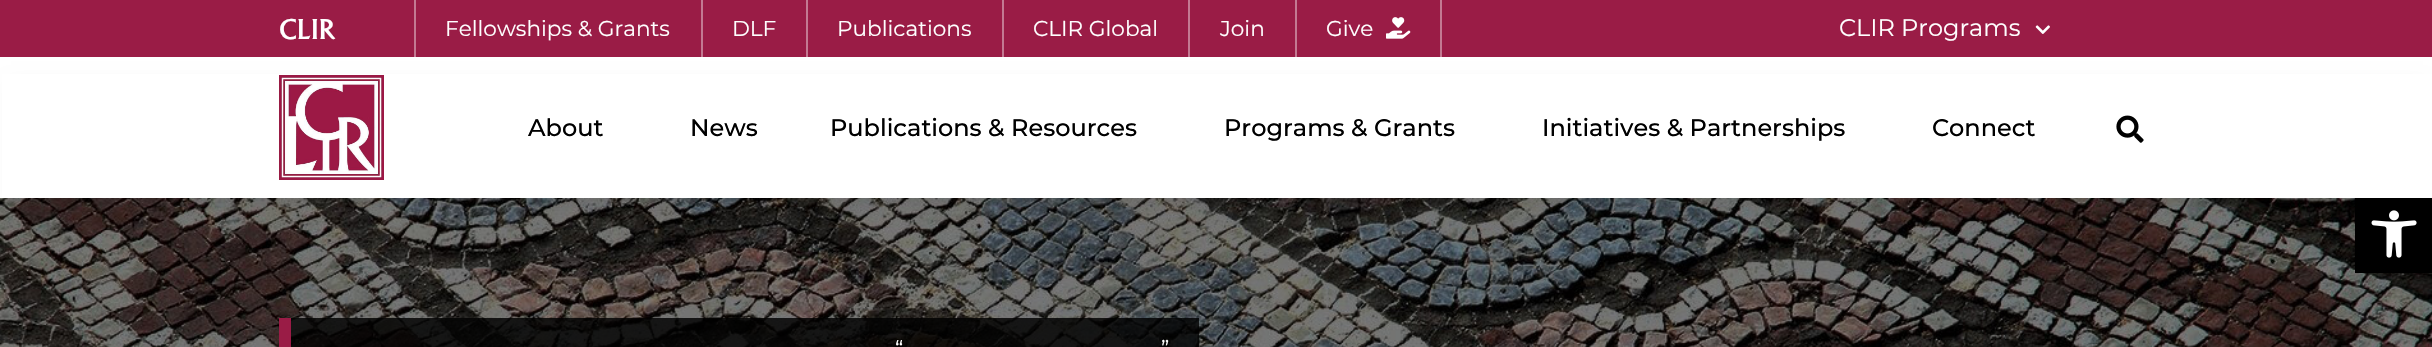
void draw(SkCanvas* canvas) {
    SkPaint paint;
    paint.setAntiAlias(true);
    canvas->clear(0xFFFFFFFF);
    paint.setColor(0xFF9A1C46);
    canvas->drawRect(SkRect::MakeXYWH(0, 0, 2432, 57), paint);
    SkFont font1(fontMgr->matchFamilyStyle("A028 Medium", SkFontStyle::Normal()), 26);
    font1.setSubpixel(true);
    paint.setColor(0xFFFFFFFF);
    canvas->drawString("CLIR", 279, 39, font1, paint);
    paint.setColor(0xFFC37992);
    canvas->drawRect(SkRect::MakeXYWH(701, 0, 2, 57), paint);
    canvas->drawRect(SkRect::MakeXYWH(414, 0, 2, 57), paint);
    SkFont font2(fontMgr->matchFamilyStyle("Montserrat", SkFontStyle::Normal()), 21.6f);
    font2.setSubpixel(true);
    paint.setColor(0xFFFFFFFF);
    canvas->drawString("Fellowships & Grants", 445, 36, font2, paint);
    paint.setColor(0xFFC37992);
    canvas->drawRect(SkRect::MakeXYWH(806, 0, 2, 57), paint);
    paint.setColor(0xFFFFFFFF);
    canvas->drawString("DLF", 732, 36, font2, paint);
    paint.setColor(0xFFC37992);
    canvas->drawRect(SkRect::MakeXYWH(1002, 0, 2, 57), paint);
    paint.setColor(0xFFFFFFFF);
    canvas->drawString("Publications", 837, 36, font2, paint);
    paint.setColor(0xFFC37992);
    canvas->drawRect(SkRect::MakeXYWH(1188, 0, 2, 57), paint);
    paint.setColor(0xFFFFFFFF);
    canvas->drawString("CLIR Global", 1033, 36, font2, paint);
    paint.setColor(0xFFC37992);
    canvas->drawRect(SkRect::MakeXYWH(1295, 0, 2, 57), paint);
    paint.setColor(0xFFFFFFFF);
    canvas->drawString("Join", 1220, 36, font2, paint);
    paint.setColor(0xFFC37992);
    canvas->drawRect(SkRect::MakeXYWH(1440, 0, 2, 57), paint);
    paint.setColor(0xFFFFFFFF);
    canvas->drawString("Give", 1326, 36, font2, paint);
    canvas->drawImageRect(SkImages::DeferredFromEncodedData(SkData::MakeFromFileName("img1.png")), SkRect::MakeXYWH(1386, 17, 25, 22), SkSamplingOptions());
    SkFont font3(fontMgr->matchFamilyStyle("Montserrat", SkFontStyle::Normal()), 24);
    font3.setSubpixel(true);
    canvas->drawString("CLIR Programs", 1839, 36, font3, paint);
    canvas->drawImageRect(SkImages::DeferredFromEncodedData(SkData::MakeFromFileName("img2.png")), SkRect::MakeXYWH(2035, 25, 15, 9), SkSamplingOptions());
    canvas->drawImageRect(SkImages::DeferredFromEncodedData(SkData::MakeFromFileName("img6.png")), SkRect::MakeXYWH(0, 198, 2432, 149), SkSamplingOptions());
    paint.setColor(0x1A000000);
    paint.setMaskFilter(SkMaskFilter::MakeBlur(kNormal_SkBlurStyle, 7.5f));
    canvas->drawRect(SkRect::MakeXYWH(2355, 195, 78, 78), paint);
    paint.setMaskFilter(nullptr);
    paint.setColor(0xFF000000);
    canvas->drawRect(SkRect::MakeXYWH(2355, 198, 77, 75), paint);
    canvas->drawImageRect(SkImages::DeferredFromEncodedData(SkData::MakeFromFileName("img5.png")), SkRect::MakeXYWH(2371, 210, 46, 48), SkSamplingOptions());
    paint.setColor(0x14000000);
    paint.setMaskFilter(SkMaskFilter::MakeBlur(kNormal_SkBlurStyle, 7.5f));
    canvas->drawRect(SkRect::MakeXYWH(11, 83, 2412, 120), paint);
    paint.setMaskFilter(nullptr);
    paint.setColor(0xFFFFFFFF);
    canvas->drawRect(SkRect::MakeXYWH(2, 74, 2430, 124), paint);
    canvas->drawImageRect(SkImages::DeferredFromEncodedData(SkData::MakeFromFileName("img3.png")), SkRect::MakeXYWH(279, 75, 105, 105), SkSamplingOptions());
    SkFont font4(fontMgr->matchFamilyStyle("Montserrat", SkFontStyle(500, SkFontStyle::kNormal_Width, SkFontStyle::kUpright_Slant)), 24);
    font4.setSubpixel(true);
    paint.setColor(0xFF000000);
    canvas->drawString("About", 528, 136, font4, paint);
    canvas->drawString("News", 690, 136, font4, paint);
    canvas->drawString("Publications & Resources", 830, 136, font4, paint);
    canvas->drawString("Programs & Grants", 1224, 136, font4, paint);
    canvas->drawString("Initiatives & Partnerships", 1542, 136, font4, paint);
    canvas->drawString("Connect", 1932, 136, font4, paint);
    canvas->drawImageRect(SkImages::DeferredFromEncodedData(SkData::MakeFromFileName("img4.png")), SkRect::MakeXYWH(2116, 115, 28, 28), SkSamplingOptions());
    paint.setColor(0xFF9A1C46);
    canvas->drawRect(SkRect::MakeXYWH(279, 318, 12, 29), paint);
    paint.setColor(0xD1000000);
    canvas->drawRect(SkRect::MakeXYWH(291, 318, 908, 29), paint);
    paint.setColor(0xFFFFFFFF);
    canvas->drawString("“", 895, 356, font2, paint);
    canvas->drawString("”", 1161, 356, font2, paint);
}
